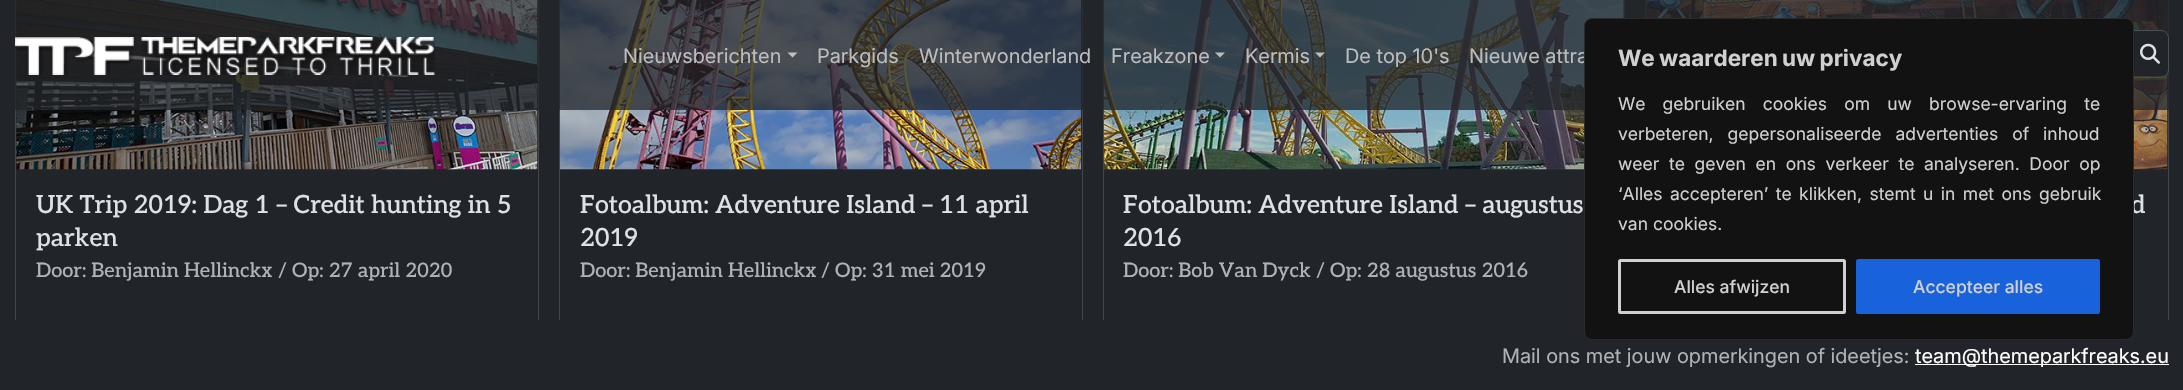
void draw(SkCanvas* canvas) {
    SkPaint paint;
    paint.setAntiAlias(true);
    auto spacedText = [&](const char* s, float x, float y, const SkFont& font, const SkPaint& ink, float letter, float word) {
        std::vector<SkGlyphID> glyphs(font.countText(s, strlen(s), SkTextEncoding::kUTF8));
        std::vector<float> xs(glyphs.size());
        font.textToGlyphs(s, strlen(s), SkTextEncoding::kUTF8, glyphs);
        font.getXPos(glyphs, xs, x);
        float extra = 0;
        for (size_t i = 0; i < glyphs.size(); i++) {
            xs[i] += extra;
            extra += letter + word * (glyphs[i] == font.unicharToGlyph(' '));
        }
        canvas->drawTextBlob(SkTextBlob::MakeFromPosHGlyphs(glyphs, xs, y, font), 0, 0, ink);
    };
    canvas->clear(0xFF212529);
    paint.setStyle(SkPaint::kStroke_Style);
    paint.setStrokeWidth(1);
    paint.setColor(0xFF424649);
    canvas->drawRect(SkRect::MakeXYWH(15.5f, -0.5f, 523, 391), paint);
    canvas->drawImageRect(SkImages::DeferredFromEncodedData(SkData::MakeFromFileName("img3.png")), SkRect::MakeXYWH(16, 0, 522, 170), SkSamplingOptions());
    canvas->drawRect(SkRect::MakeXYWH(559.5f, -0.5f, 523, 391), paint);
    canvas->drawImageRect(SkImages::DeferredFromEncodedData(SkData::MakeFromFileName("img4.png")), SkRect::MakeXYWH(560, 0, 522, 170), SkSamplingOptions());
    canvas->drawRect(SkRect::MakeXYWH(1103.5f, -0.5f, 521, 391), paint);
    canvas->drawImageRect(SkImages::DeferredFromEncodedData(SkData::MakeFromFileName("img5.png")), SkRect::MakeXYWH(1103, 0, 521, 170), SkSamplingOptions());
    canvas->drawRect(SkRect::MakeXYWH(1645.5f, -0.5f, 523, 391), paint);
    canvas->drawImageRect(SkImages::DeferredFromEncodedData(SkData::MakeFromFileName("img6.png")), SkRect::MakeXYWH(1646, 0, 522, 170), SkSamplingOptions());
    paint.setStyle(SkPaint::kFill_Style);
    paint.setColor(0xBF212529);
    canvas->drawRect(SkRect::MakeXYWH(15, 0, 2154, 110), paint);
    canvas->drawImageRect(SkImages::DeferredFromEncodedData(SkData::MakeFromFileName("img1.png")), SkRect::MakeXYWH(15, 37, 420, 38), SkSamplingOptions());
    SkFont font1(fontMgr->matchFamilyStyle("Inter", SkFontStyle::Normal()), 20);
    font1.setSubpixel(true);
    paint.setColor(0xFFBDBCBC);
    canvas->drawString("Nieuwsberichten", 623, 63, font1, paint);
    paint.setColor(0xFFBFC1C3);
    canvas->drawPath(SkPathBuilder().moveTo(787.5f, 52.5f).lineTo(797.5f, 52.5f).lineTo(792.5f, 57.5f).close().detach(), paint);
    paint.setColor(0xFFBDBCBC);
    canvas->drawString("Parkgids", 817, 63, font1, paint);
    canvas->drawString("Winterwonderland", 919, 63, font1, paint);
    canvas->drawString("Freakzone", 1111, 63, font1, paint);
    paint.setColor(0xA6FFFFFF);
    canvas->drawPath(SkPathBuilder().moveTo(1215, 52.5f).lineTo(1225, 52.5f).lineTo(1220, 57.5f).close().detach(), paint);
    paint.setColor(0xFFBDBCBC);
    canvas->drawString("Kermis", 1245, 63, font1, paint);
    paint.setColor(0xA6FFFFFF);
    canvas->drawPath(SkPathBuilder().moveTo(1315, 52.5f).lineTo(1325, 52.5f).lineTo(1320, 57.5f).close().detach(), paint);
    paint.setColor(0xFFBDBCBC);
    canvas->drawString("De top 10's", 1345, 63, font1, paint);
    canvas->drawString("Nieuwe attra", 1469, 63, font1, paint);
    paint.setColor(0xFF212529);
    canvas->drawRoundRect(SkRect::MakeXYWH(1803, 31, 365, 45), 6, 6, paint);
    paint.setStyle(SkPaint::kStroke_Style);
    paint.setColor(0xFF495057);
    canvas->drawRoundRect(SkRect::MakeXYWH(1801.5f, 30.5f, 367, 47), 7.5f, 7.5f, paint);
    canvas->drawImageRect(SkImages::DeferredFromEncodedData(SkData::MakeFromFileName("img2.png")), SkRect::MakeXYWH(2140, 43, 20, 21), SkSamplingOptions());
    SkFont font2(fontMgr->matchFamilyStyle("Aleo", SkFontStyle(500, SkFontStyle::kNormal_Width, SkFontStyle::kUpright_Slant)), 25);
    font2.setSubpixel(true);
    paint.setStyle(SkPaint::kFill_Style);
    paint.setColor(0xFFDEE2E6);
    canvas->drawString("d", 2131, 213, font2, paint);
    paint.setColor(0xFF212529);
    canvas->drawRect(SkRect::MakeXYWH(15, 320, 2154, 70), paint);
    paint.setColor(0xFF121212);
    canvas->drawRoundRect(SkRect::MakeXYWH(1584.5f, 18.5f, 549, 321), 7.5f, 7.5f, paint);
    paint.setStyle(SkPaint::kStroke_Style);
    paint.setColor(0xFF2A2A2A);
    canvas->drawRoundRect(SkRect::MakeXYWH(1584.5f, 18.5f, 549, 321), 7.5f, 7.5f, paint);
    SkFont font3(fontMgr->matchFamilyStyle("Inter", SkFontStyle::Bold()), 22.5f);
    font3.setSubpixel(true);
    paint.setStyle(SkPaint::kFill_Style);
    paint.setColor(0xFFD0D0D0);
    spacedText("We waarderen uw privacy", 1618, 66, font3, paint, 0, -1);
    SkFont font4(fontMgr->matchFamilyStyle("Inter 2", SkFontStyle::Normal()), 17.5f);
    font4.setSubpixel(true);
    spacedText("We gebruiken cookies om uw browse-ervaring te", 1618, 110, font4, paint, 0, 12.25f);
    spacedText("verbeteren, gepersonaliseerde advertenties of inhoud", 1618, 140, font4, paint, 0, 9);
    spacedText("weer te geven en ons verkeer te analyseren. Door op", 1618, 170, font4, paint, 0, 4.75f);
    spacedText("‘Alles accepteren’ te klikken, stemt u in met ons gebruik", 1618, 200, font4, paint, 0, 2.5f);
    canvas->drawString("van cookies.", 1618, 230, font4, paint);
    paint.setStyle(SkPaint::kStroke_Style);
    paint.setStrokeWidth(3);
    canvas->drawRoundRect(SkRect::MakeXYWH(1619.5f, 260.5f, 225, 52), 1, 1, paint);
    SkFont font5(fontMgr->matchFamilyStyle("Inter", SkFontStyle(500, SkFontStyle::kNormal_Width, SkFontStyle::kUpright_Slant)), 17.5f);
    font5.setSubpixel(true);
    paint.setStyle(SkPaint::kFill_Style);
    canvas->drawString("Alles afwijzen", 1674, 293, font5, paint);
    paint.setColor(0xFF1863DC);
    canvas->drawRoundRect(SkRect::MakeXYWH(1857.5f, 260.5f, 241, 52), 1, 1, paint);
    paint.setStyle(SkPaint::kStroke_Style);
    canvas->drawRoundRect(SkRect::MakeXYWH(1857.5f, 260.5f, 241, 52), 1, 1, paint);
    paint.setStyle(SkPaint::kFill_Style);
    paint.setColor(0xFFD0D0D0);
    canvas->drawString("Accepteer alles", 1913, 293, font5, paint);
    paint.setColor(0xFFDEE2E6);
    canvas->drawString("UK Trip 2019: Dag 1 – Credit hunting in 5", 36, 213, font2, paint);
    canvas->drawString("parken", 36, 246, font2, paint);
    SkFont font6(fontMgr->matchFamilyStyle("Aleo", SkFontStyle(500, SkFontStyle::kNormal_Width, SkFontStyle::kUpright_Slant)), 20);
    font6.setSubpixel(true);
    paint.setColor(0xFFAFB3B7);
    canvas->drawString("Door: Benjamin Hellinckx", 36, 277, font6, paint);
    canvas->drawString("/ Op: 27 april 2020", 278, 277, font6, paint);
    paint.setColor(0xFFDEE2E6);
    canvas->drawString("Fotoalbum: Adventure Island – 11 april", 580, 213, font2, paint);
    canvas->drawString("2019", 580, 246, font2, paint);
    paint.setColor(0xFFAFB3B7);
    canvas->drawString("Door: Benjamin Hellinckx", 580, 277, font6, paint);
    canvas->drawString("/ Op: 31 mei 2019", 821, 277, font6, paint);
    paint.setColor(0xFFDEE2E6);
    canvas->drawString("Fotoalbum: Adventure Island – augustus", 1123, 213, font2, paint);
    canvas->drawString("2016", 1123, 246, font2, paint);
    paint.setColor(0xFFAFB3B7);
    canvas->drawString("Door: Bob Van Dyck", 1123, 277, font6, paint);
    canvas->drawString("/ Op: 28 augustus 2016", 1316, 277, font6, paint);
    canvas->drawString("Mail ons met jouw opmerkingen of ideetjes:", 1502, 363, font1, paint);
    paint.setColor(0xFFFFFFFF);
    canvas->drawRect(SkRect::MakeXYWH(1915, 364, 254, 1), paint);
    canvas->drawString("team@themeparkfreaks.eu", 1915, 363, font1, paint);
}
